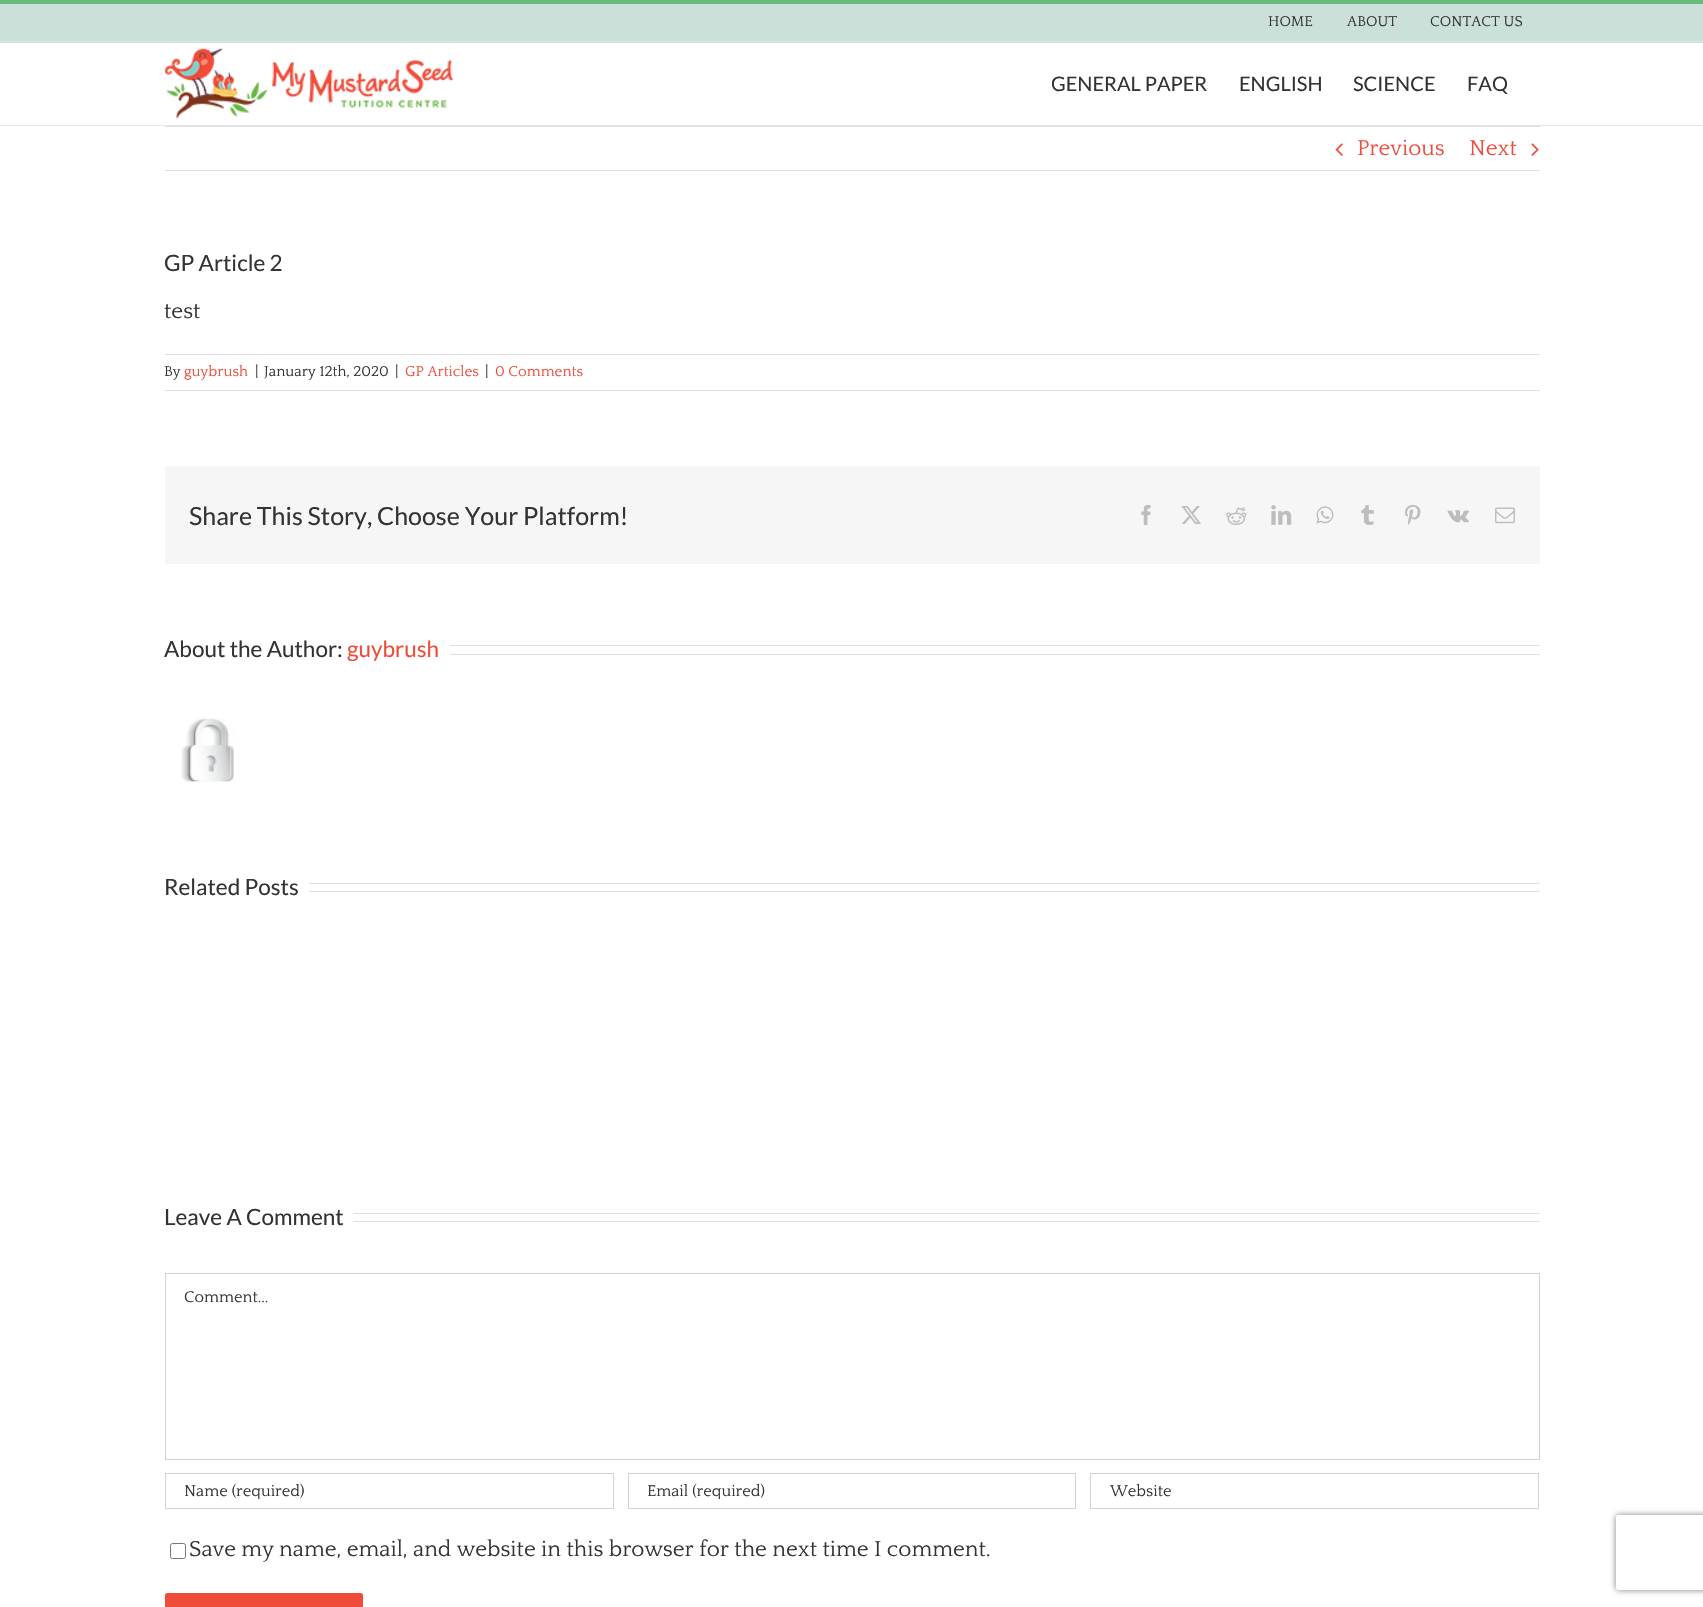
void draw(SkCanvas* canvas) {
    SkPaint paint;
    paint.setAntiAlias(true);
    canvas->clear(0xFFFFFFFF);
    paint.setColor(0xFFCCE0DA);
    canvas->drawRect(SkRect::MakeXYWH(0, 4, 1703, 39), paint);
    paint.setColor(0xFF65BC7B);
    canvas->drawRect(SkRect::MakeXYWH(0, 0, 1703, 4), paint);
    paint.setColor(0xFFE5E5E5);
    canvas->drawRect(SkRect::MakeXYWH(0, 41, 1703, 1), paint);
    SkFont font1(fontMgr->matchFamilyStyle("Quattrocento", SkFontStyle::Normal()), 15);
    font1.setSubpixel(true);
    paint.setColor(0xFF333333);
    canvas->drawString("HOME", 1268, 26, font1, paint);
    canvas->drawString("ABOUT", 1347, 26, font1, paint);
    canvas->drawString("CONTACT US", 1430, 26, font1, paint);
    paint.setColor(0xFFE5E5E5);
    canvas->drawRect(SkRect::MakeXYWH(0, 125, 1703, 1), paint);
    canvas->drawImageRect(SkImages::DeferredFromEncodedData(SkData::MakeFromFileName("img1.png")), SkRect::MakeXYWH(164, 48, 289, 71), SkSamplingOptions());
    SkFont font2(fontMgr->matchFamilyStyle("Lato", SkFontStyle::Normal()), 20);
    font2.setSubpixel(true);
    paint.setColor(0xFF333333);
    canvas->drawString("GENERAL PAPER", 1051, 91, font2, paint);
    canvas->drawString("ENGLISH", 1239, 91, font2, paint);
    canvas->drawString("SCIENCE", 1353, 91, font2, paint);
    canvas->drawString("FAQ", 1467, 91, font2, paint);
    paint.setColor(0xFFE0DEDE);
    canvas->drawRect(SkRect::MakeXYWH(165, 126, 1375, 1), paint);
    canvas->drawRect(SkRect::MakeXYWH(165, 170, 1375, 1), paint);
    canvas->drawImageRect(SkImages::DeferredFromEncodedData(SkData::MakeFromFileName("img2.png")), SkRect::MakeXYWH(1335, 143, 8, 13), SkSamplingOptions());
    SkFont font3(fontMgr->matchFamilyStyle("Quattrocento", SkFontStyle::Normal()), 22.5f);
    font3.setSubpixel(true);
    paint.setColor(0xFFEF4C3A);
    canvas->drawString("Previous", 1357, 155, font3, paint);
    canvas->drawString("Next", 1469, 155, font3, paint);
    canvas->drawImageRect(SkImages::DeferredFromEncodedData(SkData::MakeFromFileName("img3.png")), SkRect::MakeXYWH(1531, 143, 8, 13), SkSamplingOptions());
    SkFont font4(fontMgr->matchFamilyStyle("Lato", SkFontStyle::Normal()), 22.5f);
    font4.setSubpixel(true);
    paint.setColor(0xFF333333);
    canvas->drawString("GP Article 2", 164, 271, font4, paint);
    canvas->drawString("test", 164, 318, font3, paint);
    paint.setColor(0xFFE0DEDE);
    canvas->drawRect(SkRect::MakeXYWH(165, 354, 1375, 1), paint);
    canvas->drawRect(SkRect::MakeXYWH(165, 390, 1375, 1), paint);
    paint.setColor(0xFF333333);
    canvas->drawString("By", 164, 376, font1, paint);
    paint.setColor(0xFFEF4C3A);
    canvas->drawString("guybrush", 184, 376, font1, paint);
    paint.setColor(0xFF333333);
    canvas->drawString("|", 255, 376, font1, paint);
    canvas->drawString("January 12th, 2020", 264, 376, font1, paint);
    canvas->drawString("|", 395, 376, font1, paint);
    paint.setColor(0xFFEF4C3A);
    canvas->drawString("GP Articles", 405, 376, font1, paint);
    paint.setColor(0xFF333333);
    canvas->drawString("|", 485, 376, font1, paint);
    paint.setColor(0xFFEF4C3A);
    canvas->drawString("0 Comments", 495, 376, font1, paint);
    paint.setColor(0xFFF6F6F6);
    canvas->drawRect(SkRect::MakeXYWH(165, 466, 1375, 98), paint);
    SkFont font5(fontMgr->matchFamilyStyle("Lato", SkFontStyle::Normal()), 25);
    font5.setSubpixel(true);
    paint.setColor(0xFF333333);
    canvas->drawString("Share This Story, Choose Your Platform!", 189, 525, font5, paint);
    canvas->drawImageRect(SkImages::DeferredFromEncodedData(SkData::MakeFromFileName("img4.png")), SkRect::MakeXYWH(1141, 505, 10, 20), SkSamplingOptions());
    canvas->drawImageRect(SkImages::DeferredFromEncodedData(SkData::MakeFromFileName("img5.png")), SkRect::MakeXYWH(1181, 506, 20, 18), SkSamplingOptions());
    canvas->drawImageRect(SkImages::DeferredFromEncodedData(SkData::MakeFromFileName("img6.png")), SkRect::MakeXYWH(1226, 507, 21, 18), SkSamplingOptions());
    canvas->drawImageRect(SkImages::DeferredFromEncodedData(SkData::MakeFromFileName("img7.png")), SkRect::MakeXYWH(1271, 505, 21, 20), SkSamplingOptions());
    canvas->drawImageRect(SkImages::DeferredFromEncodedData(SkData::MakeFromFileName("img8.png")), SkRect::MakeXYWH(1316, 506, 18, 18), SkSamplingOptions());
    canvas->drawImageRect(SkImages::DeferredFromEncodedData(SkData::MakeFromFileName("img9.png")), SkRect::MakeXYWH(1361, 505, 13, 20), SkSamplingOptions());
    canvas->drawImageRect(SkImages::DeferredFromEncodedData(SkData::MakeFromFileName("img10.png")), SkRect::MakeXYWH(1404, 505, 17, 20), SkSamplingOptions());
    canvas->drawImageRect(SkImages::DeferredFromEncodedData(SkData::MakeFromFileName("img11.png")), SkRect::MakeXYWH(1447, 510, 22, 13), SkSamplingOptions());
    canvas->drawImageRect(SkImages::DeferredFromEncodedData(SkData::MakeFromFileName("img12.png")), SkRect::MakeXYWH(1495, 507, 20, 17), SkSamplingOptions());
    canvas->drawString("About the Author:", 164, 657, font4, paint);
    paint.setColor(0xFFEF4C3A);
    canvas->drawString("guybrush", 347, 657, font4, paint);
    paint.setColor(0xFFE0DEDE);
    canvas->drawRect(SkRect::MakeXYWH(450, 645, 1090, 1), paint);
    canvas->drawRect(SkRect::MakeXYWH(450, 654, 1090, 1), paint);
    canvas->drawImageRect(SkImages::DeferredFromEncodedData(SkData::MakeFromFileName("img13.png")), SkRect::MakeXYWH(181, 718, 54, 65), SkSamplingOptions());
    paint.setColor(0xFF333333);
    canvas->drawString("Related Posts", 164, 895, font4, paint);
    paint.setColor(0xFFE0DEDE);
    canvas->drawRect(SkRect::MakeXYWH(309, 883, 1231, 1), paint);
    canvas->drawRect(SkRect::MakeXYWH(309, 891, 1231, 1), paint);
    paint.setColor(0xFF333333);
    canvas->drawString("Leave A Comment", 164, 1225, font4, paint);
    paint.setColor(0xFFE0DEDE);
    canvas->drawRect(SkRect::MakeXYWH(353, 1213, 1187, 1), paint);
    canvas->drawRect(SkRect::MakeXYWH(353, 1221, 1187, 1), paint);
    paint.setStyle(SkPaint::kStroke_Style);
    paint.setStrokeWidth(1);
    paint.setColor(0xFFD2D2D2);
    canvas->drawRect(SkRect::MakeXYWH(165.5f, 1273.5f, 1374, 186), paint);
    SkFont font6(fontMgr->matchFamilyStyle("Quattrocento", SkFontStyle::Normal()), 16.25f);
    font6.setSubpixel(true);
    paint.setStyle(SkPaint::kFill_Style);
    paint.setColor(0xFF333333);
    canvas->drawString("Comment...", 184, 1302, font6, paint);
    paint.setStyle(SkPaint::kStroke_Style);
    paint.setColor(0xFFD2D2D2);
    canvas->drawRect(SkRect::MakeXYWH(165.5f, 1473.5f, 448, 35), paint);
    canvas->save();
    canvas->clipRect(SkRect::MakeXYWH(185, 1481, 409, 18));
    paint.setStyle(SkPaint::kFill_Style);
    paint.setColor(0xFF333333);
    canvas->drawString("Name (required)", 184, 1496, font6, paint);
    canvas->restore();
    paint.setStyle(SkPaint::kStroke_Style);
    paint.setColor(0xFFD2D2D2);
    canvas->drawRect(SkRect::MakeXYWH(628.5f, 1473.5f, 447, 35), paint);
    canvas->save();
    canvas->clipRect(SkRect::MakeXYWH(648, 1481, 408, 18));
    paint.setStyle(SkPaint::kFill_Style);
    paint.setColor(0xFF333333);
    canvas->drawString("Email (required)", 647, 1496, font6, paint);
    canvas->restore();
    paint.setStyle(SkPaint::kStroke_Style);
    paint.setColor(0xFFD2D2D2);
    canvas->drawRect(SkRect::MakeXYWH(1090.5f, 1473.5f, 448, 35), paint);
    paint.setStyle(SkPaint::kFill_Style);
    paint.setColor(0xFF333333);
    canvas->drawString("Website", 1110, 1496, font6, paint);
    paint.setStyle(SkPaint::kStroke_Style);
    paint.setColor(0xFF767676);
    canvas->drawRoundRect(SkRect::MakeXYWH(170.5f, 1543.5f, 15, 15), 2, 2, paint);
    paint.setStyle(SkPaint::kFill_Style);
    paint.setColor(0xFF333333);
    canvas->drawString("Save my name, email, and website in this browser for the next time I comment.", 189, 1556, font3, paint);
    paint.setColor(0xFFEF4C3A);
    canvas->drawRoundRect(SkRect::MakeXYWH(165, 1593, 198, 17), 2.5f, 2.5f, paint);
    canvas->save();
    canvas->clipPath(SkPathBuilder(SkPathFillType::kEvenOdd).moveTo(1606, 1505).lineTo(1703, 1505).lineTo(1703, 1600).lineTo(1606, 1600).close().moveTo(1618.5f, 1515).lineTo(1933.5f, 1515).cubicTo(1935, 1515, 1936, 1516, 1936, 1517.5f).lineTo(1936, 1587.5f).cubicTo(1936, 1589, 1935, 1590, 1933.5f, 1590).lineTo(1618.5f, 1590).cubicTo(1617, 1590, 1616, 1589, 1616, 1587.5f).lineTo(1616, 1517.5f).cubicTo(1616, 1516, 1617, 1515, 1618.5f, 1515).close().detach(), true);
    paint.setColor(0xFF808080);
    paint.setMaskFilter(SkMaskFilter::MakeBlur(kNormal_SkBlurStyle, 3));
    canvas->drawRoundRect(SkRect::MakeXYWH(1616, 1515, 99, 75), 2.5f, 2.5f, paint);
    paint.setMaskFilter(nullptr);
    canvas->restore();
}
